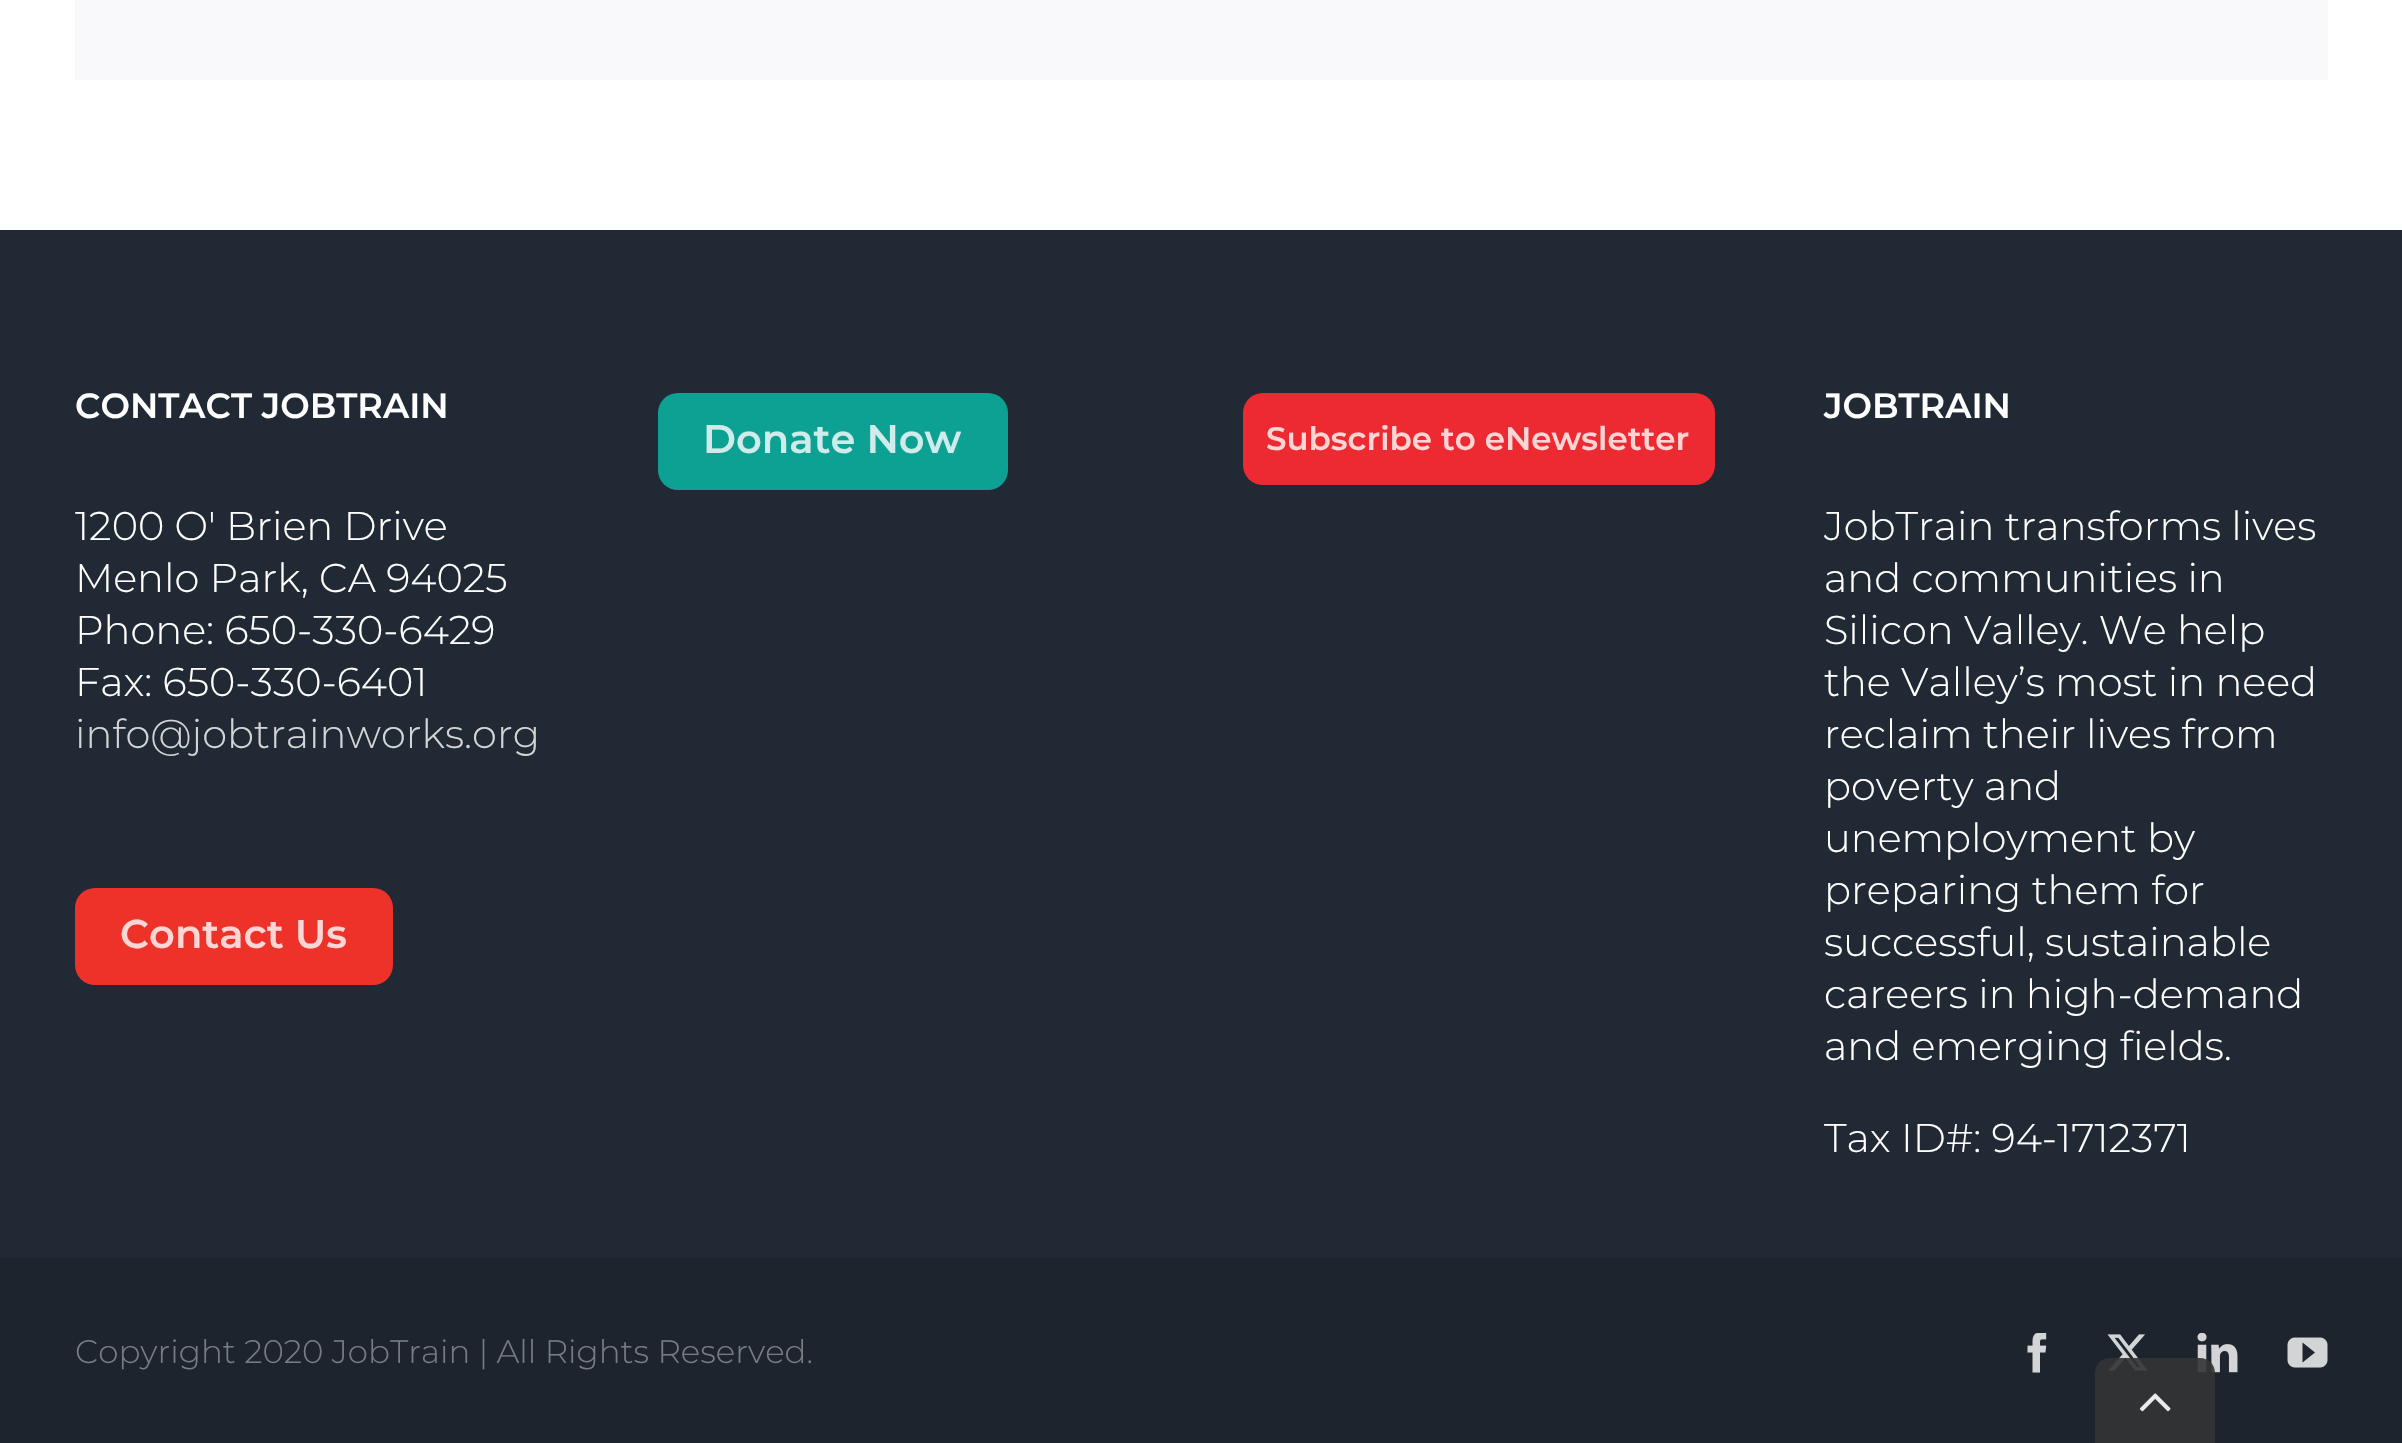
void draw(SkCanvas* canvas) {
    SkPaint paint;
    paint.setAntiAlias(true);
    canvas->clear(0xFFFFFFFF);
    paint.setColor(0xFFF9F9FB);
    canvas->drawRect(SkRect::MakeXYWH(75, 0, 2253, 80), paint);
    paint.setColor(0xFF212934);
    canvas->drawRect(SkRect::MakeXYWH(0, 230, 2402, 1028), paint);
    SkFont font1(fontMgr->matchFamilyStyle("Montserrat", SkFontStyle(600, SkFontStyle::kNormal_Width, SkFontStyle::kUpright_Slant)), 35);
    font1.setSubpixel(true);
    paint.setColor(0xFFFFFFFF);
    canvas->drawString("CONTACT JOBTRAIN", 75, 418, font1, paint);
    SkFont font2(fontMgr->matchFamilyStyle("Montserrat", SkFontStyle(300, SkFontStyle::kNormal_Width, SkFontStyle::kUpright_Slant)), 40);
    font2.setSubpixel(true);
    canvas->drawString("1200 O' Brien Drive", 75, 540, font2, paint);
    canvas->drawString("Menlo Park, CA 94025", 75, 592, font2, paint);
    canvas->drawString("Phone: 650-330-6429", 75, 644, font2, paint);
    canvas->drawString("Fax: 650-330-6401", 75, 696, font2, paint);
    paint.setColor(0xFFD3D4D6);
    canvas->drawString("info@jobtrainworks.org", 75, 748, font2, paint);
    paint.setColor(0xFFED322A);
    canvas->drawRoundRect(SkRect::MakeXYWH(75, 888, 318, 97), 20, 20, paint);
    SkFont font3(fontMgr->matchFamilyStyle("Montserrat", SkFontStyle(600, SkFontStyle::kNormal_Width, SkFontStyle::kUpright_Slant)), 40);
    font3.setSubpixel(true);
    paint.setColor(0xFFFBD6D4);
    canvas->drawString("Contact Us", 120, 948, font3, paint);
    paint.setColor(0xFF0DA194);
    canvas->drawRoundRect(SkRect::MakeXYWH(658, 393, 350, 97), 20, 20, paint);
    paint.setColor(0xFFCFECEA);
    canvas->drawString("Donate Now", 703, 453, font3, paint);
    paint.setColor(0xFFED2A31);
    canvas->drawRoundRect(SkRect::MakeXYWH(1243, 393, 472, 92), 20, 20, paint);
    SkFont font4(fontMgr->matchFamilyStyle("Montserrat", SkFontStyle(600, SkFontStyle::kNormal_Width, SkFontStyle::kUpright_Slant)), 32.5f);
    font4.setSubpixel(true);
    paint.setColor(0xFFFBD6D4);
    canvas->drawString("Subscribe to eNewsletter", 1266, 450, font4, paint);
    paint.setColor(0xFFFFFFFF);
    canvas->drawString("JOBTRAIN", 1824, 418, font1, paint);
    canvas->drawString("JobTrain transforms lives", 1824, 540, font2, paint);
    canvas->drawString("and communities in", 1824, 592, font2, paint);
    canvas->drawString("Silicon Valley. We help", 1824, 644, font2, paint);
    canvas->drawString("the Valley’s most in need", 1824, 696, font2, paint);
    canvas->drawString("reclaim their lives from", 1824, 748, font2, paint);
    canvas->drawString("poverty and", 1824, 800, font2, paint);
    canvas->drawString("unemployment by", 1824, 852, font2, paint);
    canvas->drawString("preparing them for", 1824, 904, font2, paint);
    canvas->drawString("successful, sustainable", 1824, 956, font2, paint);
    canvas->drawString("careers in high-demand", 1824, 1008, font2, paint);
    canvas->drawString("and emerging fields.", 1824, 1060, font2, paint);
    canvas->drawString("Tax ID#: 94-1712371", 1824, 1152, font2, paint);
    paint.setColor(0xFF1D242D);
    canvas->drawRect(SkRect::MakeXYWH(0, 1258, 2402, 185), paint);
    SkFont font5(fontMgr->matchFamilyStyle("Montserrat", SkFontStyle(300, SkFontStyle::kNormal_Width, SkFontStyle::kUpright_Slant)), 32.5f);
    font5.setSubpixel(true);
    paint.setColor(0xFF777C81);
    canvas->drawString("Copyright 2020 JobTrain | All Rights Reserved.", 75, 1363, font5, paint);
    canvas->drawImageRect(SkImages::DeferredFromEncodedData(SkData::MakeFromFileName("img1.png")), SkRect::MakeXYWH(2027, 1333, 20, 40), SkSamplingOptions());
    canvas->drawImageRect(SkImages::DeferredFromEncodedData(SkData::MakeFromFileName("img2.png")), SkRect::MakeXYWH(2107, 1334, 41, 37), SkSamplingOptions());
    canvas->drawImageRect(SkImages::DeferredFromEncodedData(SkData::MakeFromFileName("img3.png")), SkRect::MakeXYWH(2197, 1333, 41, 40), SkSamplingOptions());
    canvas->drawImageRect(SkImages::DeferredFromEncodedData(SkData::MakeFromFileName("img4.png")), SkRect::MakeXYWH(2287, 1337, 41, 31), SkSamplingOptions());
    paint.setColor(0xE6333333);
    canvas->drawPath(SkPathBuilder().moveTo(2110, 1358).lineTo(2200, 1358).cubicTo(2208.5f, 1358, 2215, 1364.5f, 2215, 1373).lineTo(2215, 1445).lineTo(2095, 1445).lineTo(2095, 1373).cubicTo(2095, 1364.5f, 2101.5f, 1358, 2110, 1358).close().detach(), paint);
    canvas->drawImageRect(SkImages::DeferredFromEncodedData(SkData::MakeFromFileName("img5.png")), SkRect::MakeXYWH(2139, 1393, 32, 19), SkSamplingOptions());
}
